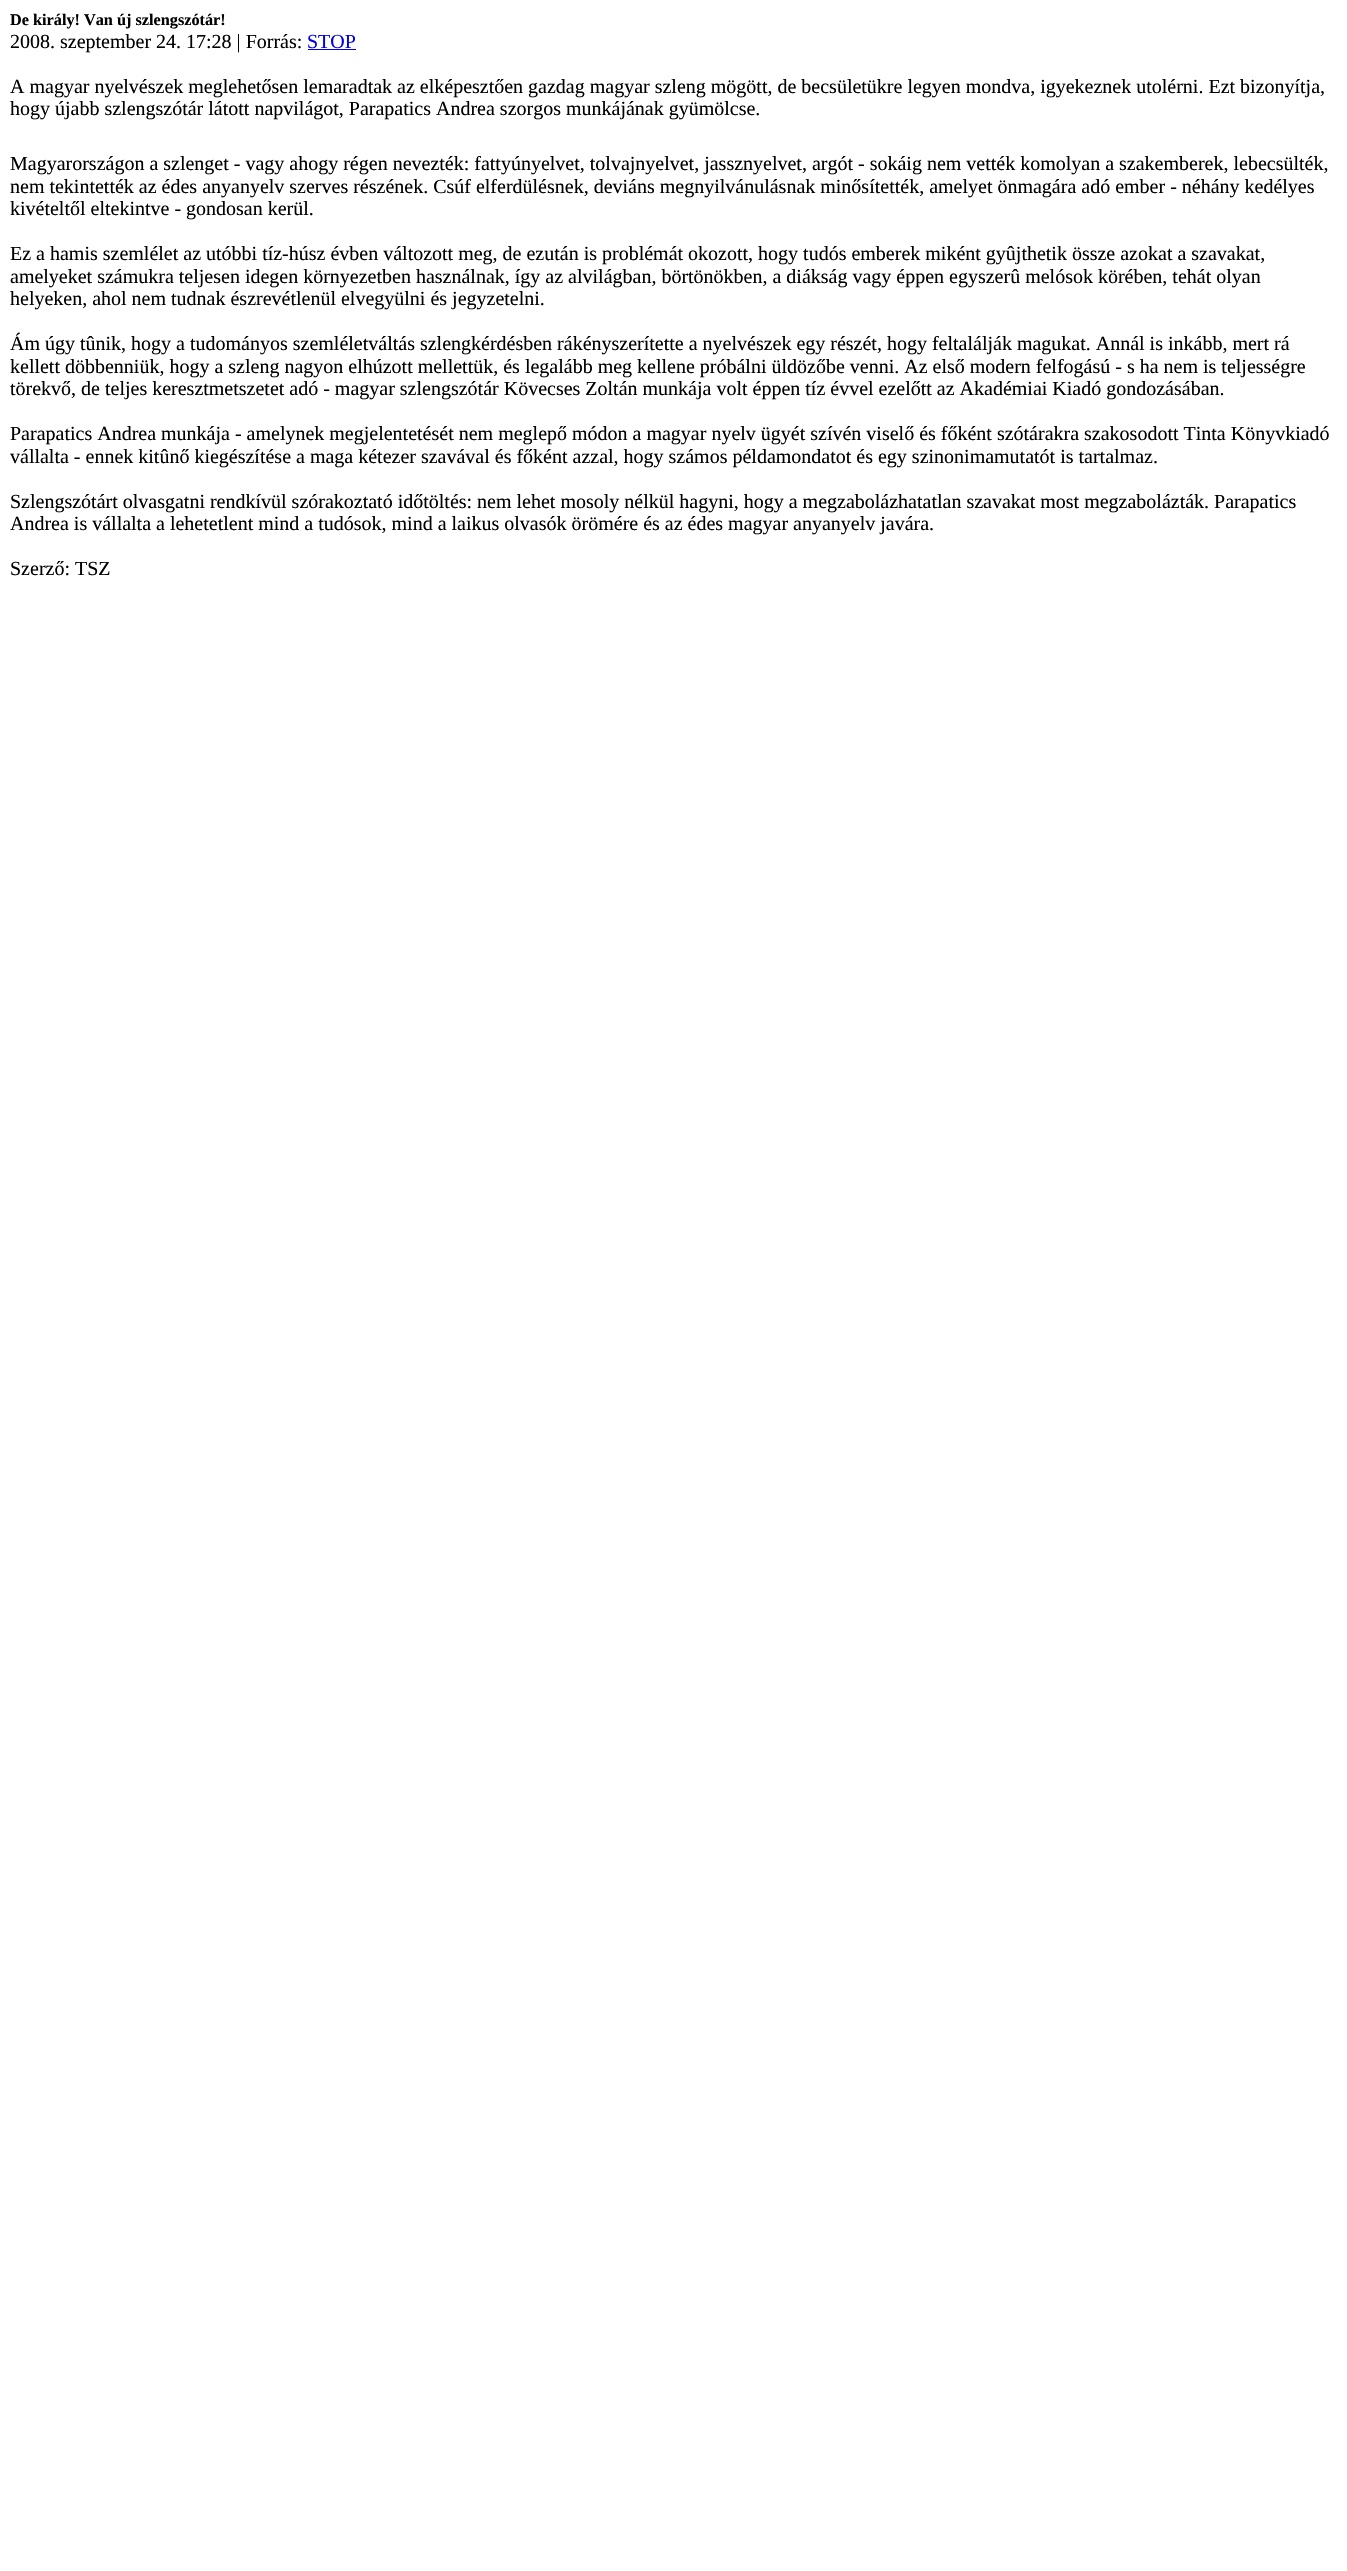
void draw(SkCanvas* canvas) {
    SkPaint paint;
    paint.setAntiAlias(true);
    canvas->clear(0xFFFFFFFF);
    SkFont font1(fontMgr->matchFamilyStyle("Liberation Serif", SkFontStyle::Bold()), 16.25f);
    font1.setSubpixel(true);
    paint.setColor(0xFF000000);
    canvas->drawString("De király! Van új szlengszótár!", 10, 25, font1, paint);
    SkFont font2(fontMgr->matchFamilyStyle("Liberation Serif", SkFontStyle::Normal()), 20);
    font2.setSubpixel(true);
    canvas->drawString("2008. szeptember 24. 17:28 | Forrás:", 10, 48, font2, paint);
    paint.setColor(0xFF0000EE);
    canvas->drawString("STOP", 307, 48, font2, paint);
    canvas->drawRect(SkRect::MakeXYWH(308, 49, 48, 1), paint);
    paint.setColor(0xFF000000);
    canvas->drawString("A magyar nyelvészek meglehetősen lemaradtak az elképesztően gazdag magyar szleng mögött, de becsületükre legyen mondva, igyekeznek utolérni. Ezt bizonyítja,", 10, 93, font2, paint);
    canvas->drawString("hogy újabb szlengszótár látott napvilágot, Parapatics Andrea szorgos munkájának gyümölcse.", 10, 115, font2, paint);
    canvas->drawString("Magyarországon a szlenget - vagy ahogy régen nevezték: fattyúnyelvet, tolvajnyelvet, jassznyelvet, argót - sokáig nem vették komolyan a szakemberek, lebecsülték,", 10, 170, font2, paint);
    canvas->drawString("nem tekintették az édes anyanyelv szerves részének. Csúf elferdülésnek, deviáns megnyilvánulásnak minősítették, amelyet önmagára adó ember - néhány kedélyes", 10, 193, font2, paint);
    canvas->drawString("kivételtől eltekintve - gondosan kerül.", 10, 215, font2, paint);
    canvas->drawString("Ez a hamis szemlélet az utóbbi tíz-húsz évben változott meg, de ezután is problémát okozott, hogy tudós emberek miként gyûjthetik össze azokat a szavakat,", 10, 260, font2, paint);
    canvas->drawString("amelyeket számukra teljesen idegen környezetben használnak, így az alvilágban, börtönökben, a diákság vagy éppen egyszerû melósok körében, tehát olyan", 10, 283, font2, paint);
    canvas->drawString("helyeken, ahol nem tudnak észrevétlenül elvegyülni és jegyzetelni.", 10, 305, font2, paint);
    canvas->drawString("Ám úgy tûnik, hogy a tudományos szemléletváltás szlengkérdésben rákényszerítette a nyelvészek egy részét, hogy feltalálják magukat. Annál is inkább, mert rá", 10, 350, font2, paint);
    canvas->drawString("kellett döbbenniük, hogy a szleng nagyon elhúzott mellettük, és legalább meg kellene próbálni üldözőbe venni. Az első modern felfogású - s ha nem is teljességre", 10, 373, font2, paint);
    canvas->drawString("törekvő, de teljes keresztmetszetet adó - magyar szlengszótár Kövecses Zoltán munkája volt éppen tíz évvel ezelőtt az Akadémiai Kiadó gondozásában.", 10, 395, font2, paint);
    canvas->drawString("Parapatics Andrea munkája - amelynek megjelentetését nem meglepő módon a magyar nyelv ügyét szívén viselő és főként szótárakra szakosodott Tinta Könyvkiadó", 10, 440, font2, paint);
    canvas->drawString("vállalta - ennek kitûnő kiegészítése a maga kétezer szavával és főként azzal, hogy számos példamondatot és egy szinonimamutatót is tartalmaz.", 10, 463, font2, paint);
    canvas->drawString("Szlengszótárt olvasgatni rendkívül szórakoztató időtöltés: nem lehet mosoly nélkül hagyni, hogy a megzabolázhatatlan szavakat most megzabolázták. Parapatics", 10, 508, font2, paint);
    canvas->drawString("Andrea is vállalta a lehetetlent mind a tudósok, mind a laikus olvasók örömére és az édes magyar anyanyelv javára.", 10, 530, font2, paint);
    canvas->drawString("Szerző: TSZ", 10, 575, font2, paint);
}
